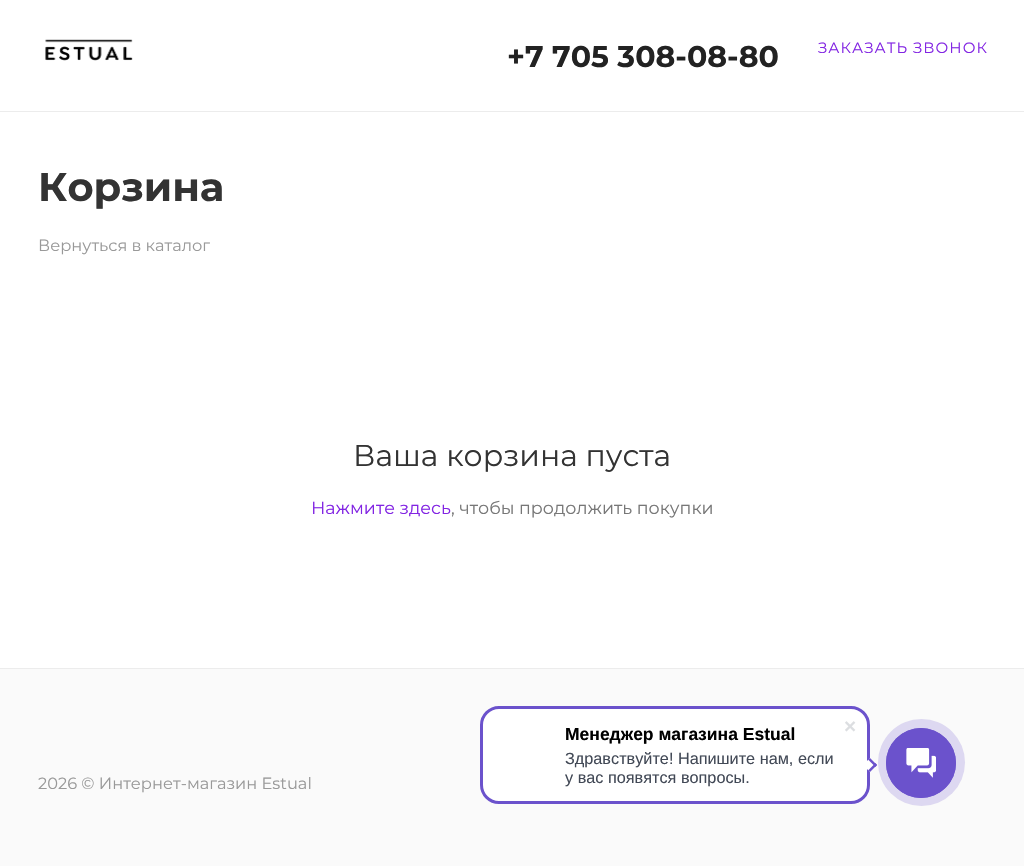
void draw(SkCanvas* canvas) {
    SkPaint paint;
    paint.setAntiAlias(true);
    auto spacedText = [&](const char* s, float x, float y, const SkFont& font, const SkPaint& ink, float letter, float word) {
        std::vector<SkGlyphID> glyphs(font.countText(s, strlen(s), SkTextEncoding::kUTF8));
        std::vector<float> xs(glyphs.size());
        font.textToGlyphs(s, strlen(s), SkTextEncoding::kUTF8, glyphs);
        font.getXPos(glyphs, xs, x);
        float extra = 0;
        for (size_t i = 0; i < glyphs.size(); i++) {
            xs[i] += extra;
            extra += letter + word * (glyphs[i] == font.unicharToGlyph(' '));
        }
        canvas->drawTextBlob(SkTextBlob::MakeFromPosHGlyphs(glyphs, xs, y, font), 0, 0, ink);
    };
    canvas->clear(0xFFFFFFFF);
    paint.setColor(0xFFECECEC);
    canvas->drawRect(SkRect::MakeXYWH(0, 111, 1024, 1), paint);
    canvas->drawImageRect(SkImages::DeferredFromEncodedData(SkData::MakeFromFileName("img1.png")), SkRect::MakeXYWH(45, 39, 88, 22), SkSamplingOptions());
    SkFont font1(fontMgr->matchFamilyStyle("Montserrat", SkFontStyle::Bold()), 30);
    font1.setSubpixel(true);
    paint.setColor(0xFF222222);
    canvas->drawString("+7 705 308-08-80", 507, 67, font1, paint);
    SkFont font2(fontMgr->matchFamilyStyle("Montserrat", SkFontStyle::Normal()), 15);
    font2.setSubpixel(true);
    paint.setColor(0xFF8224E3);
    spacedText("ЗАКАЗАТЬ ЗВОНОК", 818, 53, font2, paint, 1, 0);
    SkFont font3(fontMgr->matchFamilyStyle("Montserrat", SkFontStyle::Bold()), 40);
    font3.setSubpixel(true);
    paint.setColor(0xFF333333);
    canvas->drawString("Корзина", 38, 201, font3, paint);
    SkFont font4(fontMgr->matchFamilyStyle("Montserrat", SkFontStyle::Normal()), 16.25f);
    font4.setSubpixel(true);
    paint.setColor(0xFF999999);
    canvas->drawString("Вернуться в каталог", 38, 251, font4, paint);
    SkFont font5(fontMgr->matchFamilyStyle("Montserrat", SkFontStyle::Normal()), 30);
    font5.setSubpixel(true);
    paint.setColor(0xFF333333);
    canvas->drawString("Ваша корзина пуста", 353, 466, font5, paint);
    SkFont font6(fontMgr->matchFamilyStyle("Montserrat", SkFontStyle::Normal()), 17.5f);
    font6.setSubpixel(true);
    paint.setColor(0xFF8224E3);
    canvas->drawString("Нажмите здесь", 311, 514, font6, paint);
    paint.setColor(0xFF777777);
    canvas->drawString(", чтобы продолжить покупки", 451, 514, font6, paint);
    paint.setColor(0xFFFAFAFA);
    canvas->drawRect(SkRect::MakeXYWH(0, 669, 1024, 197), paint);
    paint.setColor(0xFFECECEC);
    canvas->drawRect(SkRect::MakeXYWH(0, 668, 1024, 1), paint);
    paint.setColor(0xFF999999);
    canvas->drawString("2026 © Интернет-магазин Estual", 38, 789, font4, paint);
    paint.setColor(0xFFFFFFFF);
    canvas->drawRoundRect(SkRect::MakeXYWH(481.5f, 707.5f, 387, 95), 17.5f, 17.5f, paint);
    paint.setStyle(SkPaint::kStroke_Style);
    paint.setStrokeWidth(3);
    paint.setColor(0xFF6B52CC);
    canvas->drawRoundRect(SkRect::MakeXYWH(481.5f, 707.5f, 387, 95), 17.5f, 17.5f, paint);
    SkFont font7(fontMgr->matchFamilyStyle("Liberation Sans", SkFontStyle::Bold()), 17.5f);
    font7.setSubpixel(true);
    paint.setStyle(SkPaint::kFill_Style);
    paint.setColor(0xFF000000);
    canvas->drawString("Менеджер магазина Estual", 565, 740, font7, paint);
    SkFont font8(fontMgr->matchFamilyStyle("Liberation Sans", SkFontStyle::Normal()), 16.25f);
    font8.setSubpixel(true);
    paint.setColor(0xFF424956);
    canvas->drawString("Здравствуйте! Напишите нам, если", 565, 764, font8, paint);
    canvas->drawString("у вас появятся вопросы.", 565, 783, font8, paint);
    canvas->drawImageRect(SkImages::DeferredFromEncodedData(SkData::MakeFromFileName("img2.png")), SkRect::MakeXYWH(845, 721, 11, 11), SkSamplingOptions());
    paint.setColor(0xFFFFFFFF);
    canvas->drawPath(SkPathBuilder().moveTo(863, 765).lineTo(870, 758).lineTo(877, 765).lineTo(870, 772).close().detach(), paint);
    paint.setColor(0xFF6B52CC);
    canvas->drawPath(SkPathBuilder().moveTo(868, 759.5f).lineTo(870, 758).lineTo(877, 765).lineTo(875.5f, 767).close().detach(), paint);
    canvas->drawPath(SkPathBuilder().moveTo(868, 770.5f).lineTo(875.5f, 763).lineTo(877, 765).lineTo(870, 772).close().detach(), paint);
    paint.setColor(0xFFDDD8F1);
    canvas->drawCircle(921.5f, 762.5f, 43.5f, paint);
    paint.setStyle(SkPaint::kStroke_Style);
    paint.setStrokeWidth(1);
    paint.setColor(0xFF6B52CC);
    canvas->drawCircle(921, 763, 34.5f, paint);
    paint.setStyle(SkPaint::kFill_Style);
    canvas->drawCircle(921, 763, 35, paint);
    canvas->drawImageRect(SkImages::DeferredFromEncodedData(SkData::MakeFromFileName("img3.png")), SkRect::MakeXYWH(906, 748, 30, 30), SkSamplingOptions());
}
